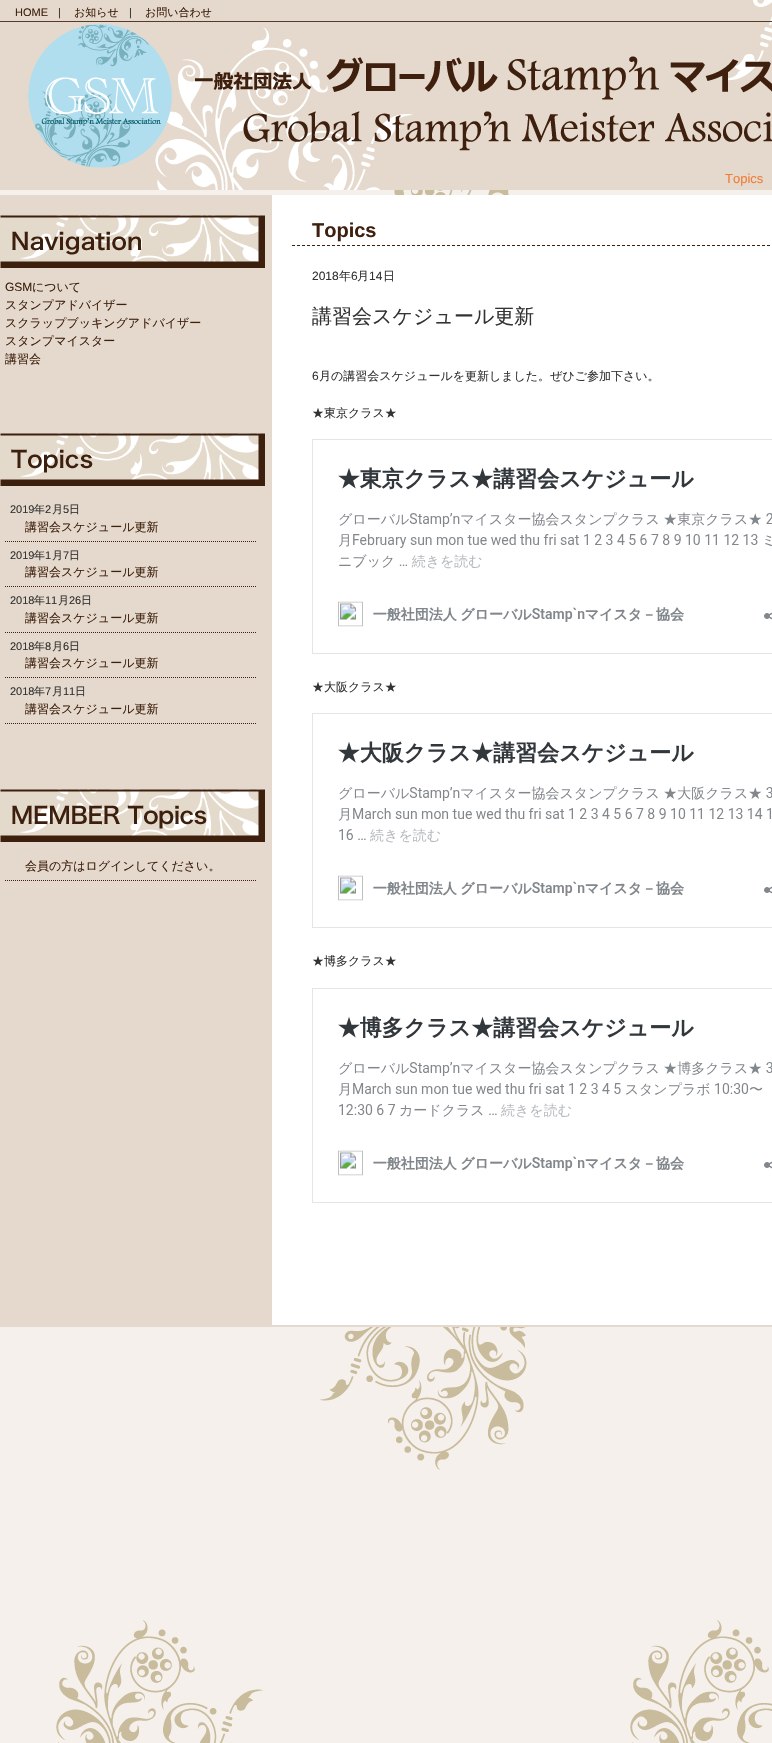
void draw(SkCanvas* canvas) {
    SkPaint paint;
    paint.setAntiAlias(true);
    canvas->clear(0xFFFFFFFF);
    canvas->drawImageRect(SkImages::DeferredFromEncodedData(SkData::MakeFromFileName("img1.png")), SkRect::MakeXYWH(0, 190, 772, 1553), SkSamplingOptions());
    canvas->drawImageRect(SkImages::DeferredFromEncodedData(SkData::MakeFromFileName("img2.png")), SkRect::MakeXYWH(0, 0, 772, 190), SkSamplingOptions());
    paint.setColor(0xFF573B2A);
    canvas->drawRect(SkRect::MakeXYWH(0, 21, 772, 1), paint);
    SkFont font1(fontMgr->matchFamilyStyle("Liberation Sans", SkFontStyle::Normal()), 11);
    font1.setSubpixel(true);
    paint.setColor(0xFF3F200E);
    canvas->drawString("HOME", 15, 16, font1, paint);
    paint.setColor(0xFF333333);
    canvas->drawString("|", 58, 16, font1, paint);
    SkFont font2(fontMgr->matchFamilyStyle("WenQuanYi Zen Hei", SkFontStyle(500, SkFontStyle::kNormal_Width, SkFontStyle::kUpright_Slant)), 11);
    font2.setSubpixel(true);
    paint.setColor(0xFF3F200E);
    canvas->drawString("お知らせ", 74, 16, font2, paint);
    paint.setColor(0xFF333333);
    canvas->drawString("|", 129, 16, font1, paint);
    paint.setColor(0xFF3F200E);
    canvas->drawString("お問い合わせ", 145, 16, font2, paint);
    SkFont font3(fontMgr->matchFamilyStyle("Liberation Sans", SkFontStyle::Normal()), 13);
    font3.setSubpixel(true);
    paint.setColor(0xFFF17C38);
    canvas->drawString("Topics", 725, 183, font3, paint);
    paint.setColor(0xFFE4D9CC);
    canvas->drawRect(SkRect::MakeXYWH(0, 195, 272, 1130), paint);
    canvas->drawImageRect(SkImages::DeferredFromEncodedData(SkData::MakeFromFileName("img3.png")), SkRect::MakeXYWH(0, 215, 265, 53), SkSamplingOptions());
    SkFont font4(fontMgr->matchFamilyStyle("Liberation Sans", SkFontStyle::Normal()), 12);
    font4.setSubpixel(true);
    paint.setColor(0xFF3F200E);
    canvas->drawString("GSM", 5, 291, font4, paint);
    SkFont font5(fontMgr->matchFamilyStyle("WenQuanYi Zen Hei", SkFontStyle(500, SkFontStyle::kNormal_Width, SkFontStyle::kUpright_Slant)), 12);
    font5.setSubpixel(true);
    canvas->drawString("について", 32, 291, font5, paint);
    canvas->drawString("スタンプアドバイザー", 5, 309, font5, paint);
    canvas->drawString("スクラップブッキングアドバイザー", 5, 327, font5, paint);
    canvas->drawString("スタンプマイスター", 5, 345, font5, paint);
    canvas->drawString("講習会", 5, 363, font5, paint);
    canvas->drawImageRect(SkImages::DeferredFromEncodedData(SkData::MakeFromFileName("img4.png")), SkRect::MakeXYWH(0, 433, 265, 53), SkSamplingOptions());
    paint.setStyle(SkPaint::kStroke_Style);
    paint.setStrokeWidth(1);
    paint.setPathEffect(SkDashPathEffect::Make({{1, 1}}, 0));
    canvas->drawPath(SkPathBuilder().moveTo(5, 541.5f).lineTo(257, 541.5f).detach(), paint);
    paint.setPathEffect(nullptr);
    paint.setStyle(SkPaint::kFill_Style);
    paint.setColor(0xFF333333);
    canvas->drawString("2019", 10, 513, font1, paint);
    canvas->drawString("年", 34, 513, font2, paint);
    canvas->drawString("2", 45, 513, font1, paint);
    canvas->drawString("月", 52, 513, font2, paint);
    canvas->drawString("5", 63, 513, font1, paint);
    canvas->drawString("日", 69, 513, font2, paint);
    paint.setColor(0xFF3F200E);
    canvas->drawString("講習会スケジュール更新", 25, 531, font5, paint);
    paint.setStyle(SkPaint::kStroke_Style);
    paint.setPathEffect(SkDashPathEffect::Make({{1, 1}}, 0));
    canvas->drawPath(SkPathBuilder().moveTo(5, 586.5f).lineTo(257, 586.5f).detach(), paint);
    paint.setPathEffect(nullptr);
    paint.setStyle(SkPaint::kFill_Style);
    paint.setColor(0xFF333333);
    canvas->drawString("2019", 10, 559, font1, paint);
    canvas->drawString("年", 34, 559, font2, paint);
    canvas->drawString("1", 45, 559, font1, paint);
    canvas->drawString("月", 52, 559, font2, paint);
    canvas->drawString("7", 63, 559, font1, paint);
    canvas->drawString("日", 69, 559, font2, paint);
    paint.setColor(0xFF3F200E);
    canvas->drawString("講習会スケジュール更新", 25, 576, font5, paint);
    paint.setStyle(SkPaint::kStroke_Style);
    paint.setPathEffect(SkDashPathEffect::Make({{1, 1}}, 0));
    canvas->drawPath(SkPathBuilder().moveTo(5, 632.5f).lineTo(257, 632.5f).detach(), paint);
    paint.setPathEffect(nullptr);
    paint.setStyle(SkPaint::kFill_Style);
    paint.setColor(0xFF333333);
    canvas->drawString("2018", 10, 604, font1, paint);
    canvas->drawString("年", 34, 604, font2, paint);
    canvas->drawString("11", 45, 604, font1, paint);
    canvas->drawString("月", 58, 604, font2, paint);
    canvas->drawString("26", 69, 604, font1, paint);
    canvas->drawString("日", 81, 604, font2, paint);
    paint.setColor(0xFF3F200E);
    canvas->drawString("講習会スケジュール更新", 25, 622, font5, paint);
    paint.setStyle(SkPaint::kStroke_Style);
    paint.setPathEffect(SkDashPathEffect::Make({{1, 1}}, 0));
    canvas->drawPath(SkPathBuilder().moveTo(5, 677.5f).lineTo(257, 677.5f).detach(), paint);
    paint.setPathEffect(nullptr);
    paint.setStyle(SkPaint::kFill_Style);
    paint.setColor(0xFF333333);
    canvas->drawString("2018", 10, 650, font1, paint);
    canvas->drawString("年", 34, 650, font2, paint);
    canvas->drawString("8", 45, 650, font1, paint);
    canvas->drawString("月", 52, 650, font2, paint);
    canvas->drawString("6", 63, 650, font1, paint);
    canvas->drawString("日", 69, 650, font2, paint);
    paint.setColor(0xFF3F200E);
    canvas->drawString("講習会スケジュール更新", 25, 667, font5, paint);
    paint.setStyle(SkPaint::kStroke_Style);
    paint.setPathEffect(SkDashPathEffect::Make({{1, 1}}, 0));
    canvas->drawPath(SkPathBuilder().moveTo(5, 723.5f).lineTo(257, 723.5f).detach(), paint);
    paint.setPathEffect(nullptr);
    paint.setStyle(SkPaint::kFill_Style);
    paint.setColor(0xFF333333);
    canvas->drawString("2018", 10, 695, font1, paint);
    canvas->drawString("年", 34, 695, font2, paint);
    canvas->drawString("7", 45, 695, font1, paint);
    canvas->drawString("月", 52, 695, font2, paint);
    canvas->drawString("11", 63, 695, font1, paint);
    canvas->drawString("日", 75, 695, font2, paint);
    paint.setColor(0xFF3F200E);
    canvas->drawString("講習会スケジュール更新", 25, 713, font5, paint);
    canvas->drawImageRect(SkImages::DeferredFromEncodedData(SkData::MakeFromFileName("img5.png")), SkRect::MakeXYWH(0, 789, 265, 53), SkSamplingOptions());
    paint.setStyle(SkPaint::kStroke_Style);
    paint.setPathEffect(SkDashPathEffect::Make({{1, 1}}, 0));
    canvas->drawPath(SkPathBuilder().moveTo(5, 880.5f).lineTo(257, 880.5f).detach(), paint);
    paint.setPathEffect(nullptr);
    paint.setStyle(SkPaint::kFill_Style);
    canvas->drawString("会員の方はログインしてください。", 25, 870, font5, paint);
    paint.setColor(0xFFFFFFFF);
    canvas->drawRect(SkRect::MakeXYWH(272, 195, 500, 1130), paint);
    paint.setStyle(SkPaint::kStroke_Style);
    paint.setColor(0xFF3F200E);
    paint.setPathEffect(SkDashPathEffect::Make({{3, 2}}, 0));
    canvas->drawPath(SkPathBuilder().moveTo(292, 245.5f).lineTo(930, 245.5f).detach(), paint);
    paint.setPathEffect(nullptr);
    SkFont font6(fontMgr->matchFamilyStyle("Liberation Sans", SkFontStyle::Bold()), 20);
    font6.setSubpixel(true);
    paint.setStyle(SkPaint::kFill_Style);
    canvas->drawString("Topics", 312, 237, font6, paint);
    paint.setColor(0xFF333333);
    canvas->drawString("2018", 312, 280, font4, paint);
    canvas->drawString("年", 339, 280, font5, paint);
    canvas->drawString("6", 351, 280, font4, paint);
    canvas->drawString("月", 357, 280, font5, paint);
    canvas->drawString("14", 369, 280, font4, paint);
    canvas->drawString("日", 383, 280, font5, paint);
    SkFont font7(fontMgr->matchFamilyStyle("WenQuanYi Zen Hei", SkFontStyle(500, SkFontStyle::kNormal_Width, SkFontStyle::kUpright_Slant)), 20);
    font7.setSubpixel(true);
    canvas->drawString("講習会スケジュール更新", 312, 323, font7, paint);
    canvas->drawString("6", 312, 380, font4, paint);
    canvas->drawString("月の講習会スケジュールを更新しました。ぜひご参加下さい。", 319, 380, font5, paint);
    canvas->drawString("★東京クラス★", 312, 417, font5, paint);
    canvas->drawImageRect(SkImages::DeferredFromEncodedData(SkData::MakeFromFileName("img6.png")), SkRect::MakeXYWH(312, 439, 460, 215), SkSamplingOptions());
    canvas->drawString("★大阪クラス★", 312, 691, font5, paint);
    canvas->drawImageRect(SkImages::DeferredFromEncodedData(SkData::MakeFromFileName("img7.png")), SkRect::MakeXYWH(312, 713, 460, 215), SkSamplingOptions());
    canvas->drawString("★博多クラス★", 312, 965, font5, paint);
    canvas->drawImageRect(SkImages::DeferredFromEncodedData(SkData::MakeFromFileName("img8.png")), SkRect::MakeXYWH(312, 988, 460, 215), SkSamplingOptions());
    paint.setColor(0xFFE4D9CC);
    canvas->drawRect(SkRect::MakeXYWH(0, 1325, 772, 2), paint);
}
